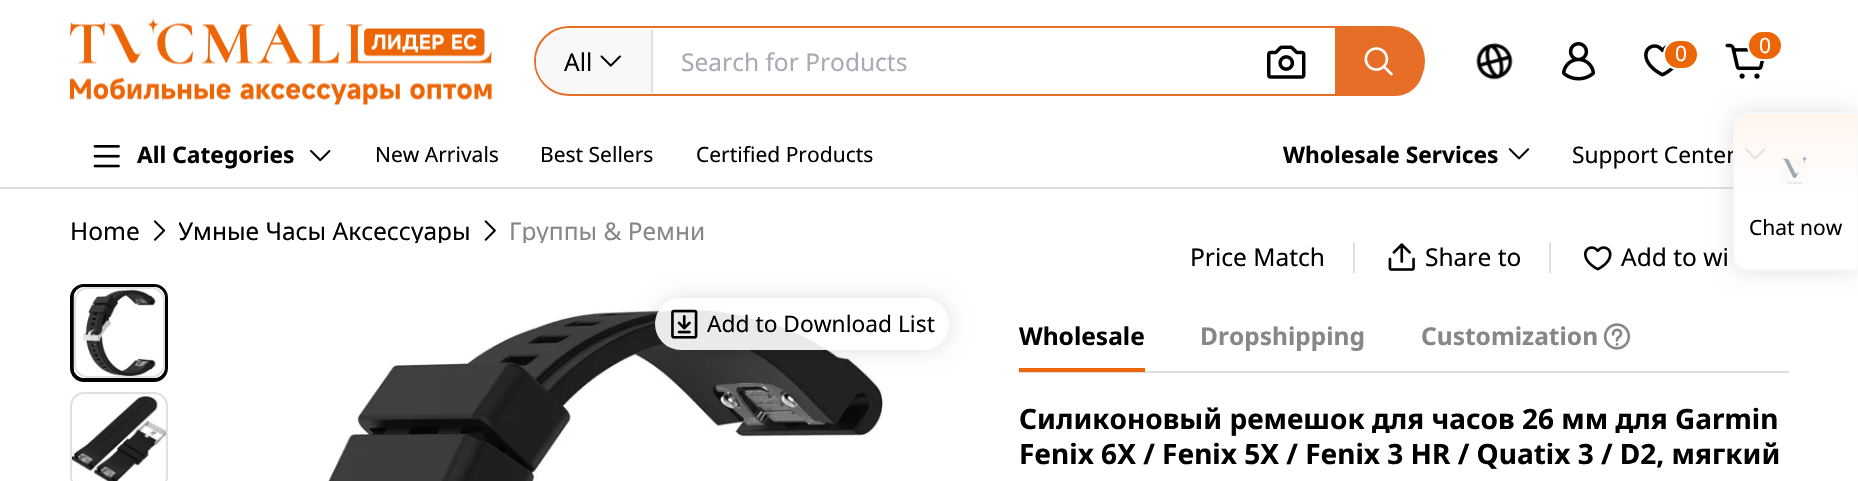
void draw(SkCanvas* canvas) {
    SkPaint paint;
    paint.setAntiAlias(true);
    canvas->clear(0xFFFFFFFF);
    paint.setColor(0xFFE0E0E0);
    canvas->drawRect(SkRect::MakeXYWH(0, 187, 1858, 2), paint);
    canvas->drawImageRect(SkImages::DeferredFromEncodedData(SkData::MakeFromFileName("img1.png")), SkRect::MakeXYWH(70, 18, 422, 87), SkSamplingOptions());
    paint.setStyle(SkPaint::kStroke_Style);
    paint.setStrokeWidth(2);
    paint.setColor(0xFFE76E26);
    canvas->drawRoundRect(SkRect::MakeXYWH(535, 27, 889, 68), 34, 34, paint);
    paint.setStyle(SkPaint::kFill_Style);
    paint.setColor(0xFFF8F8F8);
    canvas->drawPath(SkPathBuilder().moveTo(567.5f, 30).lineTo(651, 30).lineTo(651, 93).lineTo(567.5f, 93).cubicTo(550, 93, 536, 79, 536, 61.5f).cubicTo(536, 44, 550, 30, 567.5f, 30).close().detach(), paint);
    paint.setColor(0xFFE0E0E0);
    canvas->drawRect(SkRect::MakeXYWH(651, 30, 2, 63), paint);
    SkFont font1(fontMgr->matchFamilyStyle("Noto Sans", SkFontStyle::Normal()), 24.5f);
    font1.setSubpixel(true);
    paint.setColor(0xFF000000);
    canvas->drawString("All", 564, 71, font1, paint);
    canvas->drawImageRect(SkImages::DeferredFromEncodedData(SkData::MakeFromFileName("img2.png")), SkRect::MakeXYWH(600, 55, 21, 12), SkSamplingOptions());
    paint.setColor(0xFFA8ABB2);
    canvas->drawString("Search for Products", 681, 71, font1, paint);
    canvas->drawImageRect(SkImages::DeferredFromEncodedData(SkData::MakeFromFileName("img3.png")), SkRect::MakeXYWH(1267, 45, 39, 34), SkSamplingOptions());
    paint.setColor(0xFFE76E26);
    canvas->drawPath(SkPathBuilder().moveTo(1335, 28).lineTo(1395, 28).cubicTo(1410.5f, 28, 1423, 40.5f, 1423, 56).lineTo(1423, 68).cubicTo(1423, 83.5f, 1410.5f, 96, 1395, 96).lineTo(1335, 96).close().detach(), paint);
    canvas->drawImageRect(SkImages::DeferredFromEncodedData(SkData::MakeFromFileName("img4.png")), SkRect::MakeXYWH(1364, 47, 29, 29), SkSamplingOptions());
    canvas->drawImageRect(SkImages::DeferredFromEncodedData(SkData::MakeFromFileName("img5.png")), SkRect::MakeXYWH(1476, 43, 37, 37), SkSamplingOptions());
    canvas->drawImageRect(SkImages::DeferredFromEncodedData(SkData::MakeFromFileName("img6.png")), SkRect::MakeXYWH(1562, 42, 33, 39), SkSamplingOptions());
    canvas->drawImageRect(SkImages::DeferredFromEncodedData(SkData::MakeFromFileName("img7.png")), SkRect::MakeXYWH(1644, 44, 30, 33), SkSamplingOptions());
    paint.setColor(0xFFEC6608);
    canvas->drawRoundRect(SkRect::MakeXYWH(1664, 40, 34, 29), 14.5f, 14.5f, paint);
    paint.setStyle(SkPaint::kStroke_Style);
    paint.setColor(0xFFFFFFFF);
    canvas->drawRoundRect(SkRect::MakeXYWH(1664, 40, 34, 29), 14.5f, 14.5f, paint);
    SkFont font2(fontMgr->matchFamilyStyle("Noto Sans", SkFontStyle::Normal()), 21);
    font2.setSubpixel(true);
    paint.setStyle(SkPaint::kFill_Style);
    canvas->drawString("0", 1675, 61, font2, paint);
    canvas->drawImageRect(SkImages::DeferredFromEncodedData(SkData::MakeFromFileName("img8.png")), SkRect::MakeXYWH(1725, 43, 39, 36), SkSamplingOptions());
    paint.setColor(0xFFEC6608);
    canvas->drawRoundRect(SkRect::MakeXYWH(1748, 31, 34, 29), 14.5f, 14.5f, paint);
    paint.setStyle(SkPaint::kStroke_Style);
    paint.setColor(0xFFFFFFFF);
    canvas->drawRoundRect(SkRect::MakeXYWH(1748, 31, 34, 29), 14.5f, 14.5f, paint);
    paint.setStyle(SkPaint::kFill_Style);
    canvas->drawString("0", 1759, 53, font2, paint);
    canvas->drawImageRect(SkImages::DeferredFromEncodedData(SkData::MakeFromFileName("img9.png")), SkRect::MakeXYWH(93, 145, 27, 23), SkSamplingOptions());
    SkFont font3(fontMgr->matchFamilyStyle("Noto Sans", SkFontStyle::Bold()), 22.75f);
    font3.setSubpixel(true);
    paint.setColor(0xFF000000);
    canvas->drawString("All Categories", 137, 163, font3, paint);
    canvas->drawImageRect(SkImages::DeferredFromEncodedData(SkData::MakeFromFileName("img10.png")), SkRect::MakeXYWH(310, 150, 21, 12), SkSamplingOptions());
    canvas->drawString("New Arrivals", 375, 162, font2, paint);
    canvas->drawString("Best Sellers", 540, 162, font2, paint);
    canvas->drawString("Certified Products", 696, 162, font2, paint);
    canvas->drawString("Wholesale Services", 1283, 163, font3, paint);
    canvas->drawImageRect(SkImages::DeferredFromEncodedData(SkData::MakeFromFileName("img11.png")), SkRect::MakeXYWH(1508, 148, 22, 12), SkSamplingOptions());
    SkFont font4(fontMgr->matchFamilyStyle("Noto Sans", SkFontStyle::Normal()), 22.75f);
    font4.setSubpixel(true);
    canvas->drawString("Support Center", 1572, 163, font4, paint);
    canvas->drawImageRect(SkImages::DeferredFromEncodedData(SkData::MakeFromFileName("img12.png")), SkRect::MakeXYWH(1745, 148, 21, 12), SkSamplingOptions());
    canvas->drawString("Home", 70, 240, font1, paint);
    canvas->drawImageRect(SkImages::DeferredFromEncodedData(SkData::MakeFromFileName("img13.png")), SkRect::MakeXYWH(153, 220, 13, 21), SkSamplingOptions());
    canvas->save();
    canvas->clipRect(SkRect::MakeXYWH(179, 219, 292, 24));
    canvas->drawString("Умные Часы Аксессуары", 178, 240, font1, paint);
    canvas->restore();
    canvas->drawImageRect(SkImages::DeferredFromEncodedData(SkData::MakeFromFileName("img14.png")), SkRect::MakeXYWH(484, 220, 12, 21), SkSamplingOptions());
    canvas->save();
    canvas->clipRect(SkRect::MakeXYWH(509, 219, 196, 24));
    paint.setColor(0xFF878787);
    canvas->drawString("Группы & Ремни", 509, 240, font1, paint);
    canvas->restore();
    paint.setStyle(SkPaint::kStroke_Style);
    paint.setStrokeWidth(4);
    paint.setColor(0xFF000000);
    canvas->drawRoundRect(SkRect::MakeXYWH(72, 286, 94, 94), 12, 12, paint);
    paint.setStyle(SkPaint::kFill_Style);
    paint.setColor(0xFFFFFFFF);
    canvas->drawRoundRect(SkRect::MakeXYWH(74, 287, 91, 91), 11, 11, paint);
    canvas->drawImageRect(SkImages::DeferredFromEncodedData(SkData::MakeFromFileName("img15.png")), SkRect::MakeXYWH(154, 287, 11, 14), SkSamplingOptions());
    canvas->drawImageRect(SkImages::DeferredFromEncodedData(SkData::MakeFromFileName("img16.png")), SkRect::MakeXYWH(73, 287, 92, 91), SkSamplingOptions());
    paint.setStyle(SkPaint::kStroke_Style);
    paint.setStrokeWidth(2);
    paint.setColor(0xFFE0E0E0);
    canvas->drawRoundRect(SkRect::MakeXYWH(75, 288, 89, 89), 13, 13, paint);
    canvas->drawImageRect(SkImages::DeferredFromEncodedData(SkData::MakeFromFileName("img17.png")), SkRect::MakeXYWH(71, 395, 97, 86), SkSamplingOptions());
    canvas->drawRoundRect(SkRect::MakeXYWH(71, 393, 96, 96), 13, 13, paint);
    canvas->drawImageRect(SkImages::DeferredFromEncodedData(SkData::MakeFromFileName("img18.png")), SkRect::MakeXYWH(328, 309, 555, 172), SkSamplingOptions());
    canvas->save();
    canvas->clipPath(SkPathBuilder(SkPathFillType::kEvenOdd).moveTo(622, 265).lineTo(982, 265).lineTo(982, 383).lineTo(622, 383).close().moveTo(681, 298).lineTo(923, 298).cubicTo(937.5f, 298, 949, 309.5f, 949, 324).cubicTo(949, 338.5f, 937.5f, 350, 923, 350).lineTo(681, 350).cubicTo(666.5f, 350, 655, 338.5f, 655, 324).cubicTo(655, 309.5f, 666.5f, 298, 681, 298).close().detach(), true);
    paint.setStyle(SkPaint::kFill_Style);
    paint.setColor(0x1F000000);
    paint.setMaskFilter(SkMaskFilter::MakeBlur(kNormal_SkBlurStyle, 10.5f));
    canvas->drawRoundRect(SkRect::MakeXYWH(655, 298, 294, 52), 26, 26, paint);
    paint.setMaskFilter(nullptr);
    canvas->restore();
    paint.setColor(0xE6FFFFFF);
    canvas->drawRoundRect(SkRect::MakeXYWH(655, 298, 294, 52), 26, 26, paint);
    canvas->drawImageRect(SkImages::DeferredFromEncodedData(SkData::MakeFromFileName("img19.png")), SkRect::MakeXYWH(671, 309, 27, 30), SkSamplingOptions());
    paint.setColor(0xFF000000);
    canvas->drawString("Add to Download List", 707, 332, font4, paint);
    canvas->drawString("Price Match", 1190, 266, font1, paint);
    paint.setColor(0xFFE0E0E0);
    canvas->drawRect(SkRect::MakeXYWH(1353, 242, 2, 31), paint);
    canvas->drawImageRect(SkImages::DeferredFromEncodedData(SkData::MakeFromFileName("img20.png")), SkRect::MakeXYWH(1388, 243, 27, 28), SkSamplingOptions());
    paint.setColor(0xFF000000);
    canvas->drawString("Share to", 1425, 266, font1, paint);
    paint.setColor(0xFFE0E0E0);
    canvas->drawRect(SkRect::MakeXYWH(1549, 242, 2, 31), paint);
    canvas->drawImageRect(SkImages::DeferredFromEncodedData(SkData::MakeFromFileName("img21.png")), SkRect::MakeXYWH(1583, 246, 29, 25), SkSamplingOptions());
    paint.setColor(0xFF000000);
    canvas->drawString("Add to wi", 1621, 266, font1, paint);
    paint.setColor(0xFFE0E0E0);
    canvas->drawRect(SkRect::MakeXYWH(1019, 371, 770, 2), paint);
    SkFont font5(fontMgr->matchFamilyStyle("Noto Sans", SkFontStyle::Bold()), 24.5f);
    font5.setSubpixel(true);
    paint.setColor(0xFF000000);
    canvas->drawString("Wholesale", 1019, 345, font5, paint);
    paint.setColor(0xFFEC6608);
    canvas->drawRect(SkRect::MakeXYWH(1019, 368, 126, 4), paint);
    paint.setColor(0xFF878787);
    canvas->drawString("Dropshipping", 1200, 345, font5, paint);
    canvas->drawString("Customization", 1421, 345, font5, paint);
    canvas->drawImageRect(SkImages::DeferredFromEncodedData(SkData::MakeFromFileName("img22.png")), SkRect::MakeXYWH(1603, 323, 28, 27), SkSamplingOptions());
    SkFont font6(fontMgr->matchFamilyStyle("Noto Sans", SkFontStyle::Bold()), 28);
    font6.setSubpixel(true);
    paint.setColor(0xFF000000);
    canvas->drawString("Силиконовый ремешок для часов 26 мм для Garmin", 1019, 429, font6, paint);
    canvas->drawString("Fenix 6X / Fenix 5X / Fenix 3 HR / Quatix 3 / D2, мягкий", 1019, 464, font6, paint);
    canvas->save();
    canvas->clipPath(SkPathBuilder(SkPathFillType::kEvenOdd).moveTo(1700, 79).lineTo(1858, 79).lineTo(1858, 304).lineTo(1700, 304).close().moveTo(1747, 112).lineTo(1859, 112).lineTo(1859, 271).lineTo(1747, 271).cubicTo(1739.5f, 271, 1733, 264.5f, 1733, 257).lineTo(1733, 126).cubicTo(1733, 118.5f, 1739.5f, 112, 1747, 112).close().detach(), true);
    paint.setColor(0x1F000000);
    paint.setMaskFilter(SkMaskFilter::MakeBlur(kNormal_SkBlurStyle, 10.5f));
    canvas->drawRoundRect(SkRect::MakeXYWH(1733, 112, 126, 159), 14, 14, paint);
    paint.setMaskFilter(nullptr);
    canvas->restore();
    canvas->save();
    canvas->clipPath(SkPathBuilder().moveTo(1747, 112).lineTo(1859, 112).lineTo(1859, 271).lineTo(1747, 271).cubicTo(1739.5f, 271, 1733, 264.5f, 1733, 257).lineTo(1733, 126).cubicTo(1733, 118.5f, 1739.5f, 112, 1747, 112).close().detach(), true);
    {
        const SkColor colors[] = {0xE6FFF4ED, 0xE6FFFFFF};
        const float stops[] = {0, 0.48f};
        const SkPoint ends[] = {{1796, 114}, {1796, 270}};
        paint.setShader(SkGradientShader::MakeLinear(ends, colors, stops, 2, SkTileMode::kClamp));
        paint.setAlpha(255);
    }
    canvas->drawRect(SkRect::MakeXYWH(1733, 114, 124, 156), paint);
    canvas->restore();
    paint.setStyle(SkPaint::kStroke_Style);
    paint.setShader(nullptr);
    paint.setColor(0xFFF8F8F8);
    canvas->drawPath(SkPathBuilder().moveTo(1747, 113).lineTo(1858, 113).lineTo(1858, 270).lineTo(1747, 270).cubicTo(1740, 270, 1734, 264, 1734, 257).lineTo(1734, 126).cubicTo(1734, 119, 1740, 113, 1747, 113).close().detach(), paint);
    canvas->drawImageRect(SkImages::DeferredFromEncodedData(SkData::MakeFromFileName("img23.png")), SkRect::MakeXYWH(1781, 155, 27, 29), SkSamplingOptions());
    paint.setStyle(SkPaint::kFill_Style);
    paint.setColor(0xFF000000);
    canvas->drawString("Chat now", 1749, 235, font2, paint);
}
